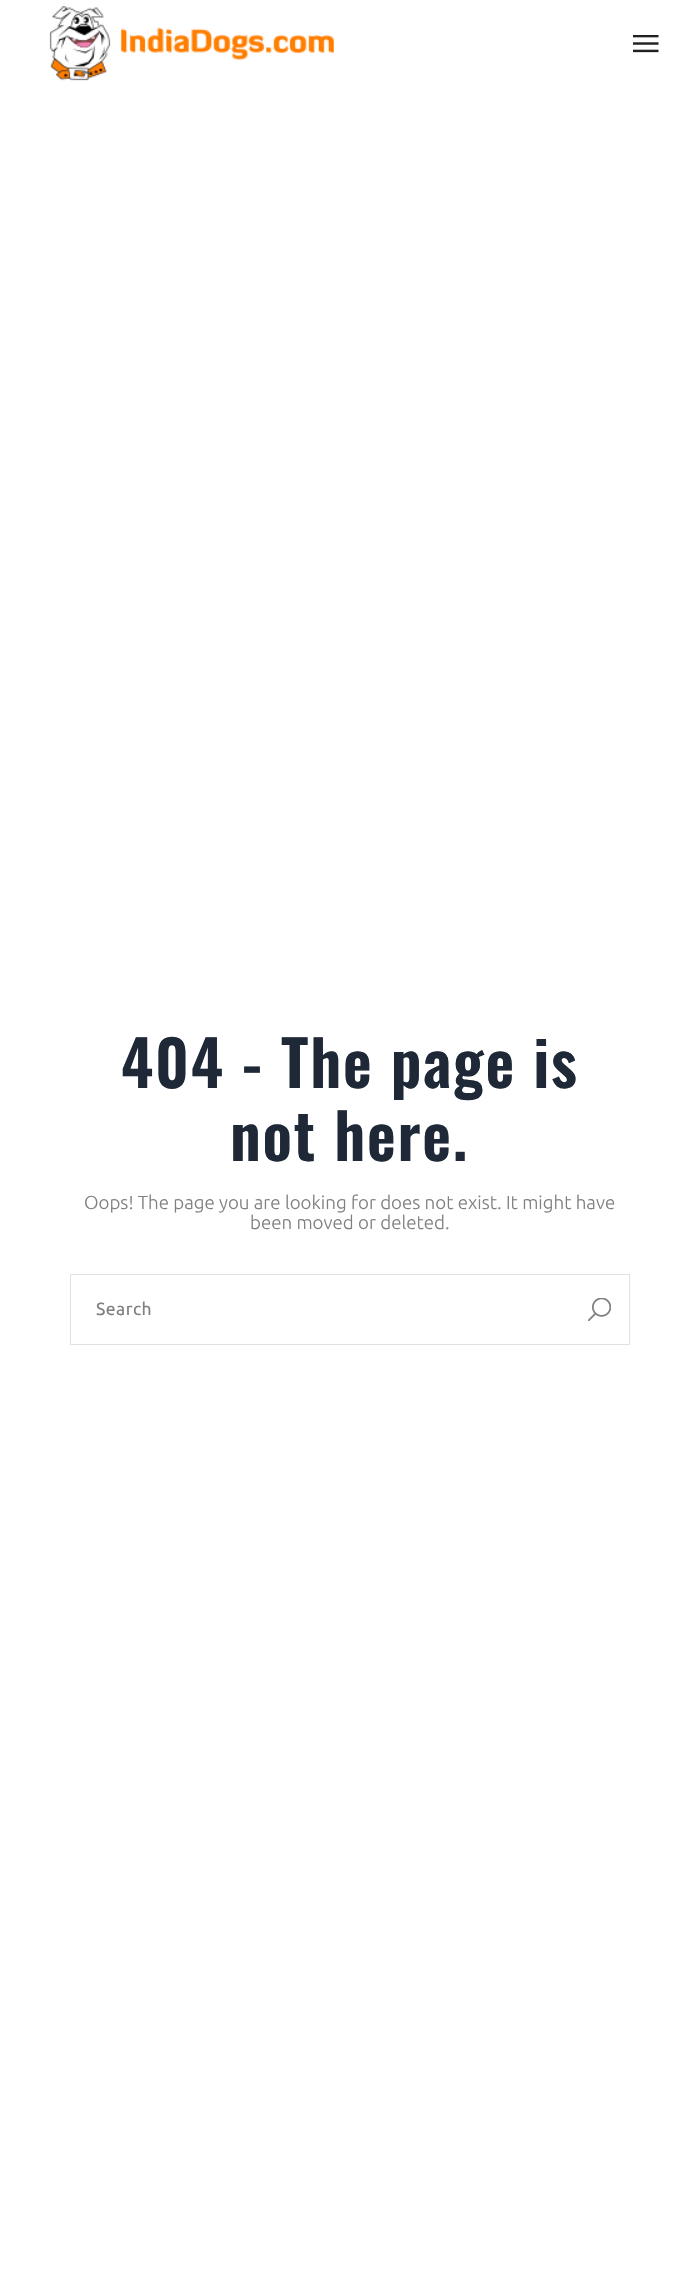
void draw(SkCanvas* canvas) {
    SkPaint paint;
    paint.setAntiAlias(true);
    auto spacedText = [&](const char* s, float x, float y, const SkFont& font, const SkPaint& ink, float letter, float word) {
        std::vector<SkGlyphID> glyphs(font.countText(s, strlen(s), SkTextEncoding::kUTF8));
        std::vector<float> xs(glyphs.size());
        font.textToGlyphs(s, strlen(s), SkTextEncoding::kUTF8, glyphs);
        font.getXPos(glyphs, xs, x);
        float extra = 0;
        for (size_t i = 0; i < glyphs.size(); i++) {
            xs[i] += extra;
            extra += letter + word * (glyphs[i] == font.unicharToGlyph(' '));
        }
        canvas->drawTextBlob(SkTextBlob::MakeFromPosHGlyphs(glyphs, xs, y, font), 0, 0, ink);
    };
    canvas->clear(0xFFFFFFFF);
    canvas->drawImageRect(SkImages::DeferredFromEncodedData(SkData::MakeFromFileName("img1.png")), SkRect::MakeXYWH(49, 6, 285, 75), SkSamplingOptions());
    canvas->drawImageRect(SkImages::DeferredFromEncodedData(SkData::MakeFromFileName("img2.png")), SkRect::MakeXYWH(633, 35, 26, 18), SkSamplingOptions());
    SkFont font1(fontMgr->matchFamilyStyle("Oswald", SkFontStyle(600, SkFontStyle::kNormal_Width, SkFontStyle::kUpright_Slant)), 62.5f);
    font1.setSubpixel(true);
    paint.setColor(0xFF1E2837);
    spacedText("404 - The page is", 121, 1088, font1, paint, 1.75f, 0);
    spacedText("not here.", 230, 1161, font1, paint, 1.75f, 0);
    SkFont font2(fontMgr->matchFamilyStyle("Ubuntu", SkFontStyle(300, SkFontStyle::kNormal_Width, SkFontStyle::kUpright_Slant)), 18.75f);
    font2.setSubpixel(true);
    paint.setColor(0xFF808080);
    canvas->drawString("Oops! The page you are looking for does not exist. It might have", 84, 1209, font2, paint);
    canvas->drawString("been moved or deleted.", 250, 1229, font2, paint);
    paint.setStyle(SkPaint::kStroke_Style);
    paint.setStrokeWidth(1);
    paint.setColor(0xFFE1E1E1);
    canvas->drawRect(SkRect::MakeXYWH(70.5f, 1274.5f, 559, 70), paint);
    SkFont font3(fontMgr->matchFamilyStyle("Ubuntu", SkFontStyle::Normal()), 17.5f);
    font3.setSubpixel(true);
    paint.setStyle(SkPaint::kFill_Style);
    paint.setColor(0xFF808080);
    spacedText("Search", 96, 1315, font3, paint, 0.5f, 0);
    canvas->drawImageRect(SkImages::DeferredFromEncodedData(SkData::MakeFromFileName("img3.png")), SkRect::MakeXYWH(588, 1298, 23, 23), SkSamplingOptions());
}
